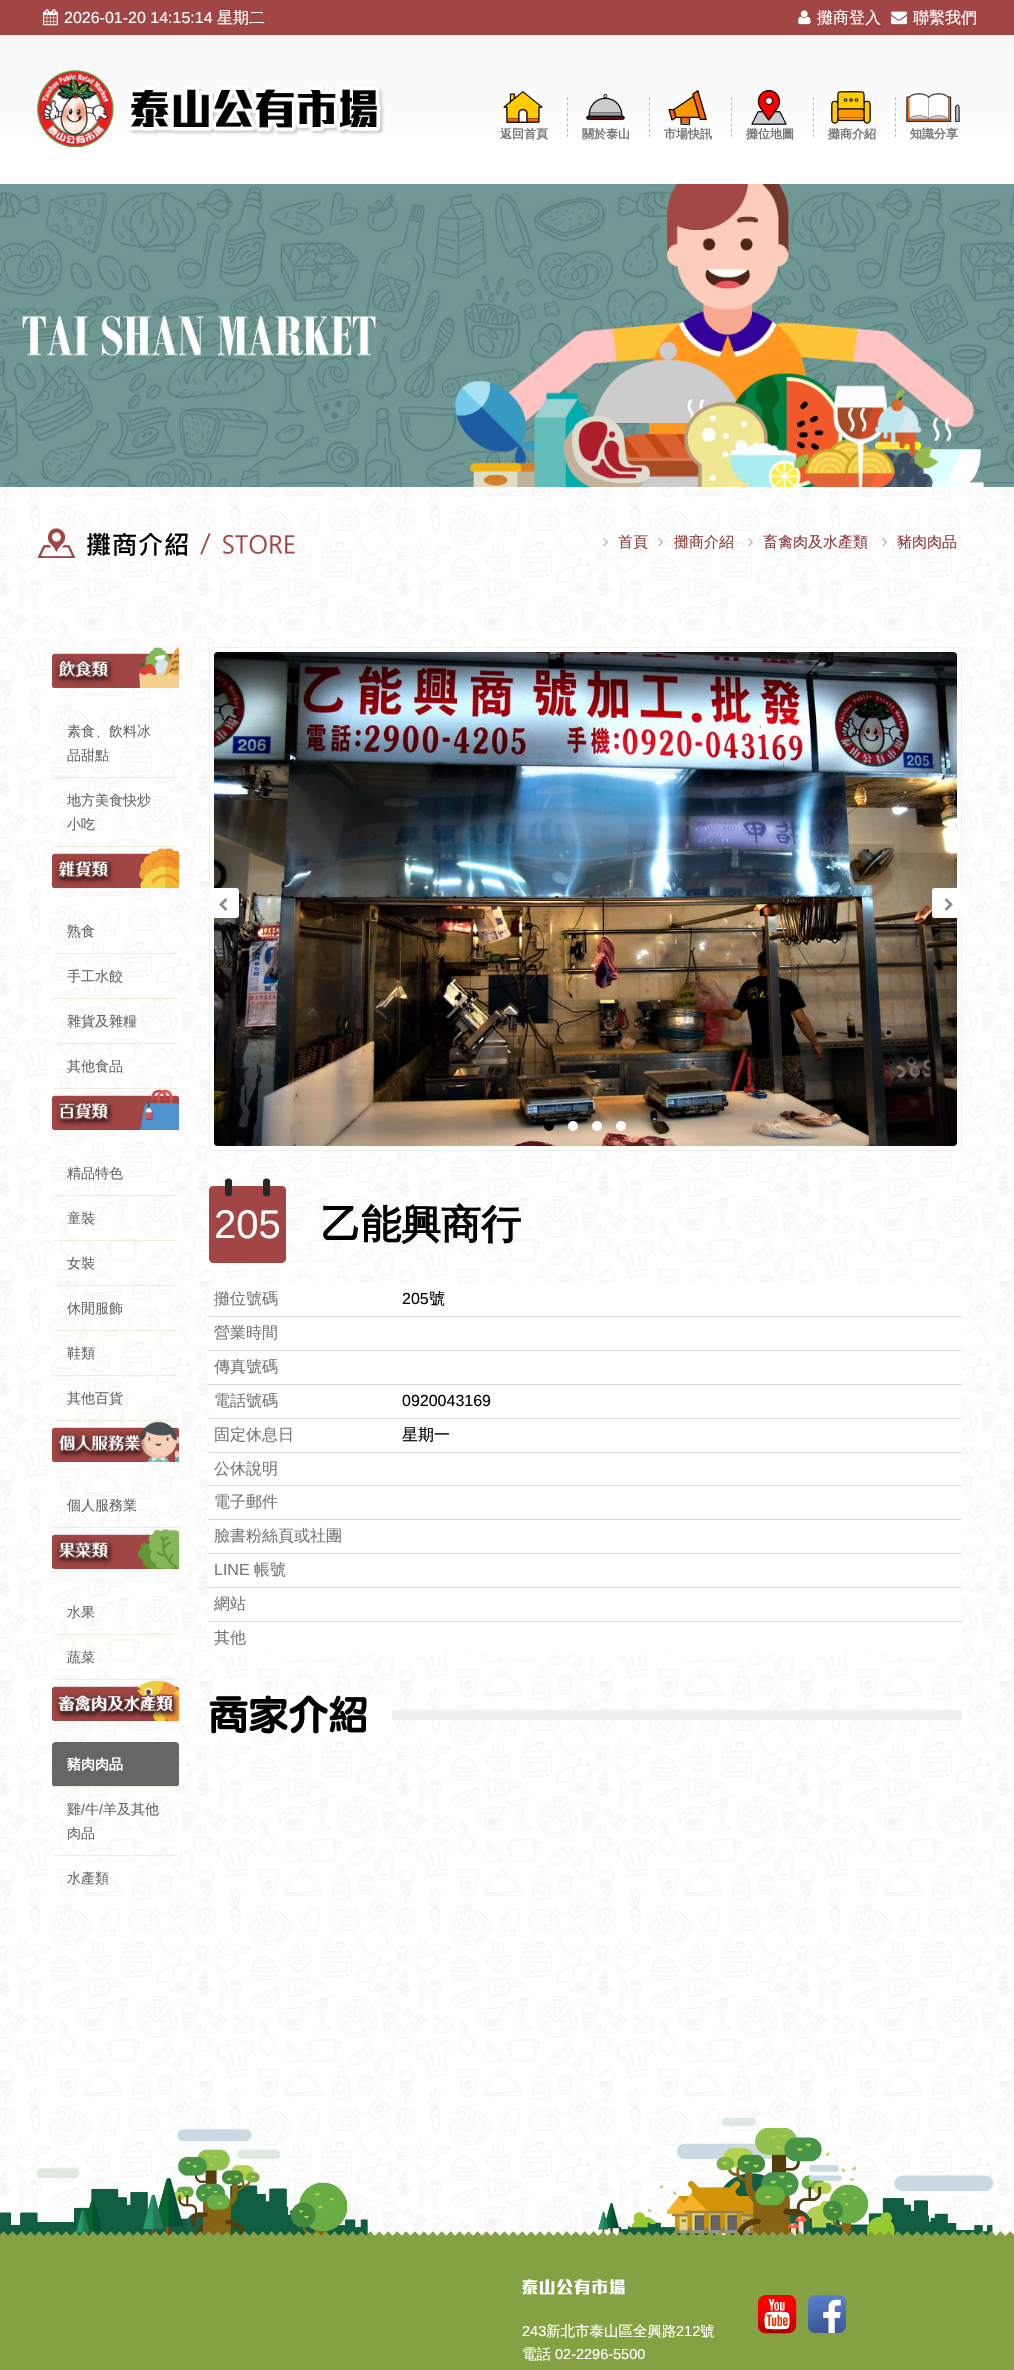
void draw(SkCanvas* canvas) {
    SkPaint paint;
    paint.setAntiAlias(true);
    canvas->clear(0xFFFFFFFF);
    canvas->drawImageRect(SkImages::DeferredFromEncodedData(SkData::MakeFromFileName("img1.png")), SkRect::MakeXYWH(0, 487, 1014, 1749), SkSamplingOptions());
    {
        const SkColor colors[] = {0xFFF6F6F6, 0xFFFFFFFF};
        const float stops[] = {0, 1};
        const SkPoint ends[] = {{507, 0}, {507, 184}};
        paint.setShader(SkGradientShader::MakeLinear(ends, colors, stops, 2, SkTileMode::kClamp));
        paint.setAlpha(255);
    }
    canvas->drawRect(SkRect::MakeXYWH(0, 35, 1014, 98), paint);
    paint.setShader(nullptr);
    paint.setColor(0xFFA14644);
    canvas->drawRect(SkRect::MakeXYWH(0, 0, 1014, 35), paint);
    canvas->drawImageRect(SkImages::DeferredFromEncodedData(SkData::MakeFromFileName("img2.png")), SkRect::MakeXYWH(43, 9, 15, 17), SkSamplingOptions());
    SkFont font1(fontMgr->matchFamilyStyle("Liberation Sans", SkFontStyle::Normal()), 16);
    font1.setSubpixel(true);
    paint.setColor(0xFFFFFFFF);
    canvas->drawString("2026-01-20 14:15:14", 64, 23, font1, paint);
    SkFont font2(fontMgr->matchFamilyStyle("WenQuanYi Zen Hei", SkFontStyle(500, SkFontStyle::kNormal_Width, SkFontStyle::kUpright_Slant)), 16);
    font2.setSubpixel(true);
    canvas->drawString("星期二", 217, 23, font2, paint);
    canvas->drawImageRect(SkImages::DeferredFromEncodedData(SkData::MakeFromFileName("img3.png")), SkRect::MakeXYWH(798, 10, 13, 15), SkSamplingOptions());
    canvas->drawString("攤商登入", 817, 23, font2, paint);
    canvas->drawImageRect(SkImages::DeferredFromEncodedData(SkData::MakeFromFileName("img4.png")), SkRect::MakeXYWH(891, 11, 16, 14), SkSamplingOptions());
    canvas->drawString("聯繫我們", 913, 23, font2, paint);
    canvas->drawImageRect(SkImages::DeferredFromEncodedData(SkData::MakeFromFileName("img5.png")), SkRect::MakeXYWH(37, 70, 348, 77), SkSamplingOptions());
    canvas->drawImageRect(SkImages::DeferredFromEncodedData(SkData::MakeFromFileName("img6.png")), SkRect::MakeXYWH(503, 91, 40, 32), SkSamplingOptions());
    SkFont font3(fontMgr->matchFamilyStyle("WenQuanYi Zen Hei", SkFontStyle::Bold()), 12);
    font3.setSubpixel(true);
    paint.setColor(0xFF777777);
    canvas->drawString("返回首頁", 500, 138, font3, paint);
    paint.setStyle(SkPaint::kStroke_Style);
    paint.setStrokeWidth(1);
    paint.setColor(0xFFBCBCBC);
    paint.setPathEffect(SkDashPathEffect::Make({{3, 2.29f}}, 0));
    canvas->drawPath(SkPathBuilder().moveTo(567.5f, 97).lineTo(567.5f, 137).detach(), paint);
    paint.setPathEffect(nullptr);
    canvas->drawImageRect(SkImages::DeferredFromEncodedData(SkData::MakeFromFileName("img7.png")), SkRect::MakeXYWH(586, 94, 39, 26), SkSamplingOptions());
    paint.setStyle(SkPaint::kFill_Style);
    paint.setColor(0xFF777777);
    canvas->drawString("關於泰山", 582, 138, font3, paint);
    paint.setStyle(SkPaint::kStroke_Style);
    paint.setColor(0xFFBCBCBC);
    paint.setPathEffect(SkDashPathEffect::Make({{3, 2.29f}}, 0));
    canvas->drawPath(SkPathBuilder().moveTo(649.5f, 97).lineTo(649.5f, 137).detach(), paint);
    paint.setPathEffect(nullptr);
    canvas->drawImageRect(SkImages::DeferredFromEncodedData(SkData::MakeFromFileName("img8.png")), SkRect::MakeXYWH(668, 90, 39, 35), SkSamplingOptions());
    paint.setStyle(SkPaint::kFill_Style);
    paint.setColor(0xFF777777);
    canvas->drawString("市場快訊", 664, 138, font3, paint);
    paint.setStyle(SkPaint::kStroke_Style);
    paint.setColor(0xFFBCBCBC);
    paint.setPathEffect(SkDashPathEffect::Make({{3, 2.29f}}, 0));
    canvas->drawPath(SkPathBuilder().moveTo(731.5f, 97).lineTo(731.5f, 137).detach(), paint);
    paint.setPathEffect(nullptr);
    canvas->drawImageRect(SkImages::DeferredFromEncodedData(SkData::MakeFromFileName("img9.png")), SkRect::MakeXYWH(751, 90, 36, 35), SkSamplingOptions());
    paint.setStyle(SkPaint::kFill_Style);
    paint.setColor(0xFF777777);
    canvas->drawString("攤位地圖", 746, 138, font3, paint);
    paint.setStyle(SkPaint::kStroke_Style);
    paint.setColor(0xFFBCBCBC);
    paint.setPathEffect(SkDashPathEffect::Make({{3, 2.29f}}, 0));
    canvas->drawPath(SkPathBuilder().moveTo(813.5f, 97).lineTo(813.5f, 137).detach(), paint);
    paint.setPathEffect(nullptr);
    canvas->drawImageRect(SkImages::DeferredFromEncodedData(SkData::MakeFromFileName("img10.png")), SkRect::MakeXYWH(831, 91, 40, 33), SkSamplingOptions());
    paint.setStyle(SkPaint::kFill_Style);
    paint.setColor(0xFF777777);
    canvas->drawString("攤商介紹", 828, 138, font3, paint);
    paint.setStyle(SkPaint::kStroke_Style);
    paint.setColor(0xFFBCBCBC);
    paint.setPathEffect(SkDashPathEffect::Make({{3, 2.29f}}, 0));
    canvas->drawPath(SkPathBuilder().moveTo(895.5f, 97).lineTo(895.5f, 137).detach(), paint);
    paint.setPathEffect(nullptr);
    canvas->drawImageRect(SkImages::DeferredFromEncodedData(SkData::MakeFromFileName("img11.png")), SkRect::MakeXYWH(906, 93, 54, 29), SkSamplingOptions());
    paint.setStyle(SkPaint::kFill_Style);
    paint.setColor(0xFF777777);
    canvas->drawString("知識分享", 910, 138, font3, paint);
    canvas->drawImageRect(SkImages::DeferredFromEncodedData(SkData::MakeFromFileName("img12.png")), SkRect::MakeXYWH(0, 184, 1014, 303), SkSamplingOptions());
    canvas->drawImageRect(SkImages::DeferredFromEncodedData(SkData::MakeFromFileName("img13.png")), SkRect::MakeXYWH(37, 528, 258, 30), SkSamplingOptions());
    canvas->drawImageRect(SkImages::DeferredFromEncodedData(SkData::MakeFromFileName("img14.png")), SkRect::MakeXYWH(603, 538, 5, 9), SkSamplingOptions());
    SkFont font4(fontMgr->matchFamilyStyle("WenQuanYi Zen Hei", SkFontStyle(500, SkFontStyle::kNormal_Width, SkFontStyle::kUpright_Slant)), 15);
    font4.setSubpixel(true);
    paint.setColor(0xFF923C3A);
    canvas->drawString("首頁", 618, 547, font4, paint);
    canvas->drawImageRect(SkImages::DeferredFromEncodedData(SkData::MakeFromFileName("img15.png")), SkRect::MakeXYWH(658, 538, 5, 9), SkSamplingOptions());
    canvas->drawString("攤商介紹", 674, 547, font4, paint);
    canvas->drawImageRect(SkImages::DeferredFromEncodedData(SkData::MakeFromFileName("img16.png")), SkRect::MakeXYWH(748, 538, 5, 9), SkSamplingOptions());
    canvas->drawString("畜禽肉及水產類", 763, 547, font4, paint);
    canvas->drawImageRect(SkImages::DeferredFromEncodedData(SkData::MakeFromFileName("img17.png")), SkRect::MakeXYWH(882, 538, 5, 9), SkSamplingOptions());
    canvas->drawString("豬肉肉品", 897, 547, font4, paint);
    canvas->drawImageRect(SkImages::DeferredFromEncodedData(SkData::MakeFromFileName("img18.png")), SkRect::MakeXYWH(52, 647, 127, 41), SkSamplingOptions());
    paint.setColor(0xFFEDEDDE);
    canvas->drawRect(SkRect::MakeXYWH(54, 777, 123, 1), paint);
    SkFont font5(fontMgr->matchFamilyStyle("WenQuanYi Zen Hei", SkFontStyle(500, SkFontStyle::kNormal_Width, SkFontStyle::kUpright_Slant)), 14);
    font5.setSubpixel(true);
    paint.setColor(0xFF666666);
    canvas->drawString("素食、飲料冰", 67, 736, font5, paint);
    canvas->drawString("品甜點", 67, 760, font5, paint);
    paint.setColor(0xFFEDEDDE);
    canvas->drawRect(SkRect::MakeXYWH(54, 846, 123, 1), paint);
    paint.setColor(0xFF666666);
    canvas->drawString("地方美食快炒", 67, 805, font5, paint);
    canvas->drawString("小吃", 67, 829, font5, paint);
    canvas->drawImageRect(SkImages::DeferredFromEncodedData(SkData::MakeFromFileName("img19.png")), SkRect::MakeXYWH(52, 848, 127, 40), SkSamplingOptions());
    paint.setColor(0xFFEDEDDE);
    canvas->drawRect(SkRect::MakeXYWH(54, 953, 123, 1), paint);
    paint.setColor(0xFF666666);
    canvas->drawString("熟食", 67, 936, font5, paint);
    paint.setColor(0xFFEDEDDE);
    canvas->drawRect(SkRect::MakeXYWH(54, 998, 123, 1), paint);
    paint.setColor(0xFF666666);
    canvas->drawString("手工水餃", 67, 981, font5, paint);
    paint.setColor(0xFFEDEDDE);
    canvas->drawRect(SkRect::MakeXYWH(54, 1043, 123, 1), paint);
    paint.setColor(0xFF666666);
    canvas->drawString("雜貨及雜糧", 67, 1026, font5, paint);
    paint.setColor(0xFFEDEDDE);
    canvas->drawRect(SkRect::MakeXYWH(54, 1088, 123, 1), paint);
    paint.setColor(0xFF666666);
    canvas->drawString("其他食品", 67, 1071, font5, paint);
    canvas->drawImageRect(SkImages::DeferredFromEncodedData(SkData::MakeFromFileName("img20.png")), SkRect::MakeXYWH(52, 1089, 127, 41), SkSamplingOptions());
    paint.setColor(0xFFEDEDDE);
    canvas->drawRect(SkRect::MakeXYWH(54, 1195, 123, 1), paint);
    paint.setColor(0xFF666666);
    canvas->drawString("精品特色", 67, 1178, font5, paint);
    paint.setColor(0xFFEDEDDE);
    canvas->drawRect(SkRect::MakeXYWH(54, 1240, 123, 1), paint);
    paint.setColor(0xFF666666);
    canvas->drawString("童裝", 67, 1223, font5, paint);
    paint.setColor(0xFFEDEDDE);
    canvas->drawRect(SkRect::MakeXYWH(54, 1285, 123, 1), paint);
    paint.setColor(0xFF666666);
    canvas->drawString("女裝", 67, 1268, font5, paint);
    paint.setColor(0xFFEDEDDE);
    canvas->drawRect(SkRect::MakeXYWH(54, 1330, 123, 1), paint);
    paint.setColor(0xFF666666);
    canvas->drawString("休閒服飾", 67, 1313, font5, paint);
    paint.setColor(0xFFEDEDDE);
    canvas->drawRect(SkRect::MakeXYWH(54, 1375, 123, 1), paint);
    paint.setColor(0xFF666666);
    canvas->drawString("鞋類", 67, 1358, font5, paint);
    paint.setColor(0xFFEDEDDE);
    canvas->drawRect(SkRect::MakeXYWH(54, 1420, 123, 1), paint);
    paint.setColor(0xFF666666);
    canvas->drawString("其他百貨", 67, 1403, font5, paint);
    canvas->drawImageRect(SkImages::DeferredFromEncodedData(SkData::MakeFromFileName("img21.png")), SkRect::MakeXYWH(52, 1421, 127, 41), SkSamplingOptions());
    paint.setColor(0xFFEDEDDE);
    canvas->drawRect(SkRect::MakeXYWH(54, 1527, 123, 1), paint);
    paint.setColor(0xFF666666);
    canvas->drawString("個人服務業", 67, 1510, font5, paint);
    canvas->drawImageRect(SkImages::DeferredFromEncodedData(SkData::MakeFromFileName("img22.png")), SkRect::MakeXYWH(52, 1528, 127, 41), SkSamplingOptions());
    paint.setColor(0xFFEDEDDE);
    canvas->drawRect(SkRect::MakeXYWH(54, 1634, 123, 1), paint);
    paint.setColor(0xFF666666);
    canvas->drawString("水果", 67, 1617, font5, paint);
    paint.setColor(0xFFEDEDDE);
    canvas->drawRect(SkRect::MakeXYWH(54, 1679, 123, 1), paint);
    paint.setColor(0xFF666666);
    canvas->drawString("蔬菜", 67, 1662, font5, paint);
    canvas->drawImageRect(SkImages::DeferredFromEncodedData(SkData::MakeFromFileName("img23.png")), SkRect::MakeXYWH(52, 1680, 127, 41), SkSamplingOptions());
    canvas->drawRoundRect(SkRect::MakeXYWH(52, 1742, 127, 45), 4, 4, paint);
    paint.setColor(0xFFEDEDDE);
    canvas->drawRect(SkRect::MakeXYWH(54, 1786, 123, 1), paint);
    SkFont font6(fontMgr->matchFamilyStyle("WenQuanYi Zen Hei", SkFontStyle::Bold()), 14);
    font6.setSubpixel(true);
    paint.setColor(0xFFFFFFFF);
    canvas->drawString("豬肉肉品", 67, 1769, font6, paint);
    paint.setColor(0xFFEDEDDE);
    canvas->drawRect(SkRect::MakeXYWH(54, 1855, 123, 1), paint);
    paint.setColor(0xFF666666);
    canvas->drawString("雞", 67, 1814, font5, paint);
    SkFont font7(fontMgr->matchFamilyStyle("Liberation Sans", SkFontStyle::Normal()), 14);
    font7.setSubpixel(true);
    canvas->drawString("/", 81, 1814, font7, paint);
    canvas->drawString("牛", 85, 1814, font5, paint);
    canvas->drawString("/", 99, 1814, font7, paint);
    canvas->drawString("羊及其他", 103, 1814, font5, paint);
    canvas->drawString("肉品", 67, 1838, font5, paint);
    canvas->drawString("水產類", 67, 1883, font5, paint);
    paint.setColor(0xFFFFFFFF);
    canvas->drawRoundRect(SkRect::MakeXYWH(209.5f, 647.5f, 752, 503), 3.5f, 3.5f, paint);
    paint.setStyle(SkPaint::kStroke_Style);
    paint.setColor(0xFFEFEFEF);
    canvas->drawRoundRect(SkRect::MakeXYWH(209.5f, 647.5f, 752, 503), 3.5f, 3.5f, paint);
    canvas->drawImageRect(SkImages::DeferredFromEncodedData(SkData::MakeFromFileName("img24.png")), SkRect::MakeXYWH(214, 652, 743, 494), SkSamplingOptions());
    paint.setStyle(SkPaint::kFill_Style);
    paint.setColor(0xFFFFFFFF);
    canvas->drawRoundRect(SkRect::MakeXYWH(209, 888, 30, 30), 3, 3, paint);
    canvas->drawImageRect(SkImages::DeferredFromEncodedData(SkData::MakeFromFileName("img25.png")), SkRect::MakeXYWH(219, 898, 9, 13), SkSamplingOptions());
    canvas->drawRoundRect(SkRect::MakeXYWH(932, 888, 30, 30), 3, 3, paint);
    canvas->drawImageRect(SkImages::DeferredFromEncodedData(SkData::MakeFromFileName("img26.png")), SkRect::MakeXYWH(944, 898, 9, 13), SkSamplingOptions());
    paint.setColor(0xFF000000);
    canvas->drawCircle(549, 1126, 5, paint);
    paint.setColor(0xFFFFFFFF);
    canvas->drawCircle(573, 1126, 5, paint);
    canvas->drawCircle(597, 1126, 5, paint);
    canvas->drawCircle(621, 1126, 5, paint);
    canvas->drawImageRect(SkImages::DeferredFromEncodedData(SkData::MakeFromFileName("img27.png")), SkRect::MakeXYWH(209, 1178, 77, 85), SkSamplingOptions());
    SkFont font8(fontMgr->matchFamilyStyle("Liberation Sans", SkFontStyle::Normal()), 40);
    font8.setSubpixel(true);
    canvas->drawString("205", 214, 1238, font8, paint);
    SkFont font9(fontMgr->matchFamilyStyle("WenQuanYi Zen Hei", SkFontStyle::Bold()), 40);
    font9.setSubpixel(true);
    paint.setColor(0xFF000000);
    canvas->drawString("乙能興商行", 321, 1238, font9, paint);
    paint.setColor(0xFFFFFFFF);
    canvas->drawRect(SkRect::MakeXYWH(209, 1283, 753, 33), paint);
    paint.setColor(0xFF777777);
    canvas->drawString("攤位號碼", 214, 1304, font2, paint);
    paint.setColor(0xFFDDDDDD);
    canvas->drawRect(SkRect::MakeXYWH(208, 1316, 754, 1), paint);
    paint.setColor(0xFF000000);
    canvas->drawString("205", 402, 1304, font1, paint);
    canvas->drawString("號", 429, 1304, font2, paint);
    paint.setColor(0xFFFFFFFF);
    canvas->drawRect(SkRect::MakeXYWH(209, 1317, 753, 33), paint);
    paint.setColor(0xFF777777);
    canvas->drawString("營業時間", 214, 1338, font2, paint);
    paint.setColor(0xFFDDDDDD);
    canvas->drawRect(SkRect::MakeXYWH(208, 1350, 754, 1), paint);
    paint.setColor(0xFFFFFFFF);
    canvas->drawRect(SkRect::MakeXYWH(214, 1351, 748, 33), paint);
    paint.setColor(0xFF777777);
    canvas->drawString("傳真號碼", 214, 1372, font2, paint);
    paint.setColor(0xFFDDDDDD);
    canvas->drawRect(SkRect::MakeXYWH(208, 1384, 754, 1), paint);
    paint.setColor(0xFFFFFFFF);
    canvas->drawRect(SkRect::MakeXYWH(209, 1385, 753, 33), paint);
    paint.setColor(0xFF777777);
    canvas->drawString("電話號碼", 214, 1406, font2, paint);
    paint.setColor(0xFFDDDDDD);
    canvas->drawRect(SkRect::MakeXYWH(208, 1418, 754, 1), paint);
    paint.setColor(0xFF000000);
    canvas->drawString("0920043169", 402, 1406, font1, paint);
    paint.setColor(0xFFFFFFFF);
    canvas->drawRect(SkRect::MakeXYWH(209, 1419, 753, 33), paint);
    paint.setColor(0xFF777777);
    canvas->drawString("固定休息日", 214, 1440, font2, paint);
    paint.setColor(0xFFDDDDDD);
    canvas->drawRect(SkRect::MakeXYWH(208, 1452, 754, 1), paint);
    paint.setColor(0xFF000000);
    canvas->drawString("星期一", 402, 1440, font2, paint);
    paint.setColor(0xFFFFFFFF);
    canvas->drawRect(SkRect::MakeXYWH(209, 1453, 753, 32), paint);
    paint.setColor(0xFF777777);
    canvas->drawString("公休說明", 214, 1474, font2, paint);
    paint.setColor(0xFFDDDDDD);
    canvas->drawRect(SkRect::MakeXYWH(208, 1485, 754, 1), paint);
    paint.setColor(0xFFFFFFFF);
    canvas->drawRect(SkRect::MakeXYWH(209, 1486, 753, 33), paint);
    paint.setColor(0xFF777777);
    canvas->drawString("電子郵件", 214, 1507, font2, paint);
    paint.setColor(0xFFDDDDDD);
    canvas->drawRect(SkRect::MakeXYWH(208, 1519, 754, 1), paint);
    paint.setColor(0xFFFFFFFF);
    canvas->drawRect(SkRect::MakeXYWH(209, 1520, 753, 33), paint);
    paint.setColor(0xFF777777);
    canvas->drawString("臉書粉絲頁或社團", 214, 1541, font2, paint);
    paint.setColor(0xFFDDDDDD);
    canvas->drawRect(SkRect::MakeXYWH(208, 1553, 754, 1), paint);
    paint.setColor(0xFFFFFFFF);
    canvas->drawRect(SkRect::MakeXYWH(214, 1554, 748, 33), paint);
    paint.setColor(0xFF777777);
    canvas->drawString("LINE", 214, 1575, font1, paint);
    canvas->drawString("帳號", 254, 1575, font2, paint);
    paint.setColor(0xFFDDDDDD);
    canvas->drawRect(SkRect::MakeXYWH(208, 1587, 754, 1), paint);
    paint.setColor(0xFFFFFFFF);
    canvas->drawRect(SkRect::MakeXYWH(209, 1588, 753, 33), paint);
    paint.setColor(0xFF777777);
    canvas->drawString("網站", 214, 1609, font2, paint);
    paint.setColor(0xFFDDDDDD);
    canvas->drawRect(SkRect::MakeXYWH(208, 1621, 754, 1), paint);
    paint.setColor(0xFFFFFFFF);
    canvas->drawRect(SkRect::MakeXYWH(209, 1622, 753, 33), paint);
    paint.setColor(0xFF777777);
    canvas->drawString("其他", 214, 1643, font2, paint);
    paint.setColor(0xFFF0F0F0);
    canvas->drawRect(SkRect::MakeXYWH(392, 1710, 570, 10), paint);
    paint.setColor(0xFFFFFFFF);
    canvas->drawRect(SkRect::MakeXYWH(209, 1695, 183, 40), paint);
    canvas->drawImageRect(SkImages::DeferredFromEncodedData(SkData::MakeFromFileName("img28.png")), SkRect::MakeXYWH(209, 1695, 158, 39), SkSamplingOptions());
    canvas->drawImageRect(SkImages::DeferredFromEncodedData(SkData::MakeFromFileName("img29.png")), SkRect::MakeXYWH(0, 2118, 1014, 122), SkSamplingOptions());
    paint.setColor(0xFF86A143);
    canvas->drawRect(SkRect::MakeXYWH(0, 2240, 1014, 130), paint);
    canvas->drawImageRect(SkImages::DeferredFromEncodedData(SkData::MakeFromFileName("img30.png")), SkRect::MakeXYWH(758, 2295, 39, 39), SkSamplingOptions());
    canvas->drawImageRect(SkImages::DeferredFromEncodedData(SkData::MakeFromFileName("img31.png")), SkRect::MakeXYWH(808, 2295, 38, 38), SkSamplingOptions());
    canvas->drawImageRect(SkImages::DeferredFromEncodedData(SkData::MakeFromFileName("img32.png")), SkRect::MakeXYWH(522, 2279, 103, 16), SkSamplingOptions());
    SkFont font10(fontMgr->matchFamilyStyle("Liberation Sans", SkFontStyle::Normal()), 14.5f);
    font10.setSubpixel(true);
    paint.setColor(0xFFFFFFFF);
    canvas->drawString("243", 522, 2336, font10, paint);
    SkFont font11(fontMgr->matchFamilyStyle("WenQuanYi Zen Hei", SkFontStyle(500, SkFontStyle::kNormal_Width, SkFontStyle::kUpright_Slant)), 14.5f);
    font11.setSubpixel(true);
    canvas->drawString("新北市泰山區全興路", 546, 2336, font11, paint);
    canvas->drawString("212", 676, 2336, font10, paint);
    canvas->drawString("號", 700, 2336, font11, paint);
    canvas->drawString("電話", 522, 2359, font11, paint);
    canvas->drawString("02-2296-5500", 555, 2359, font10, paint);
}
